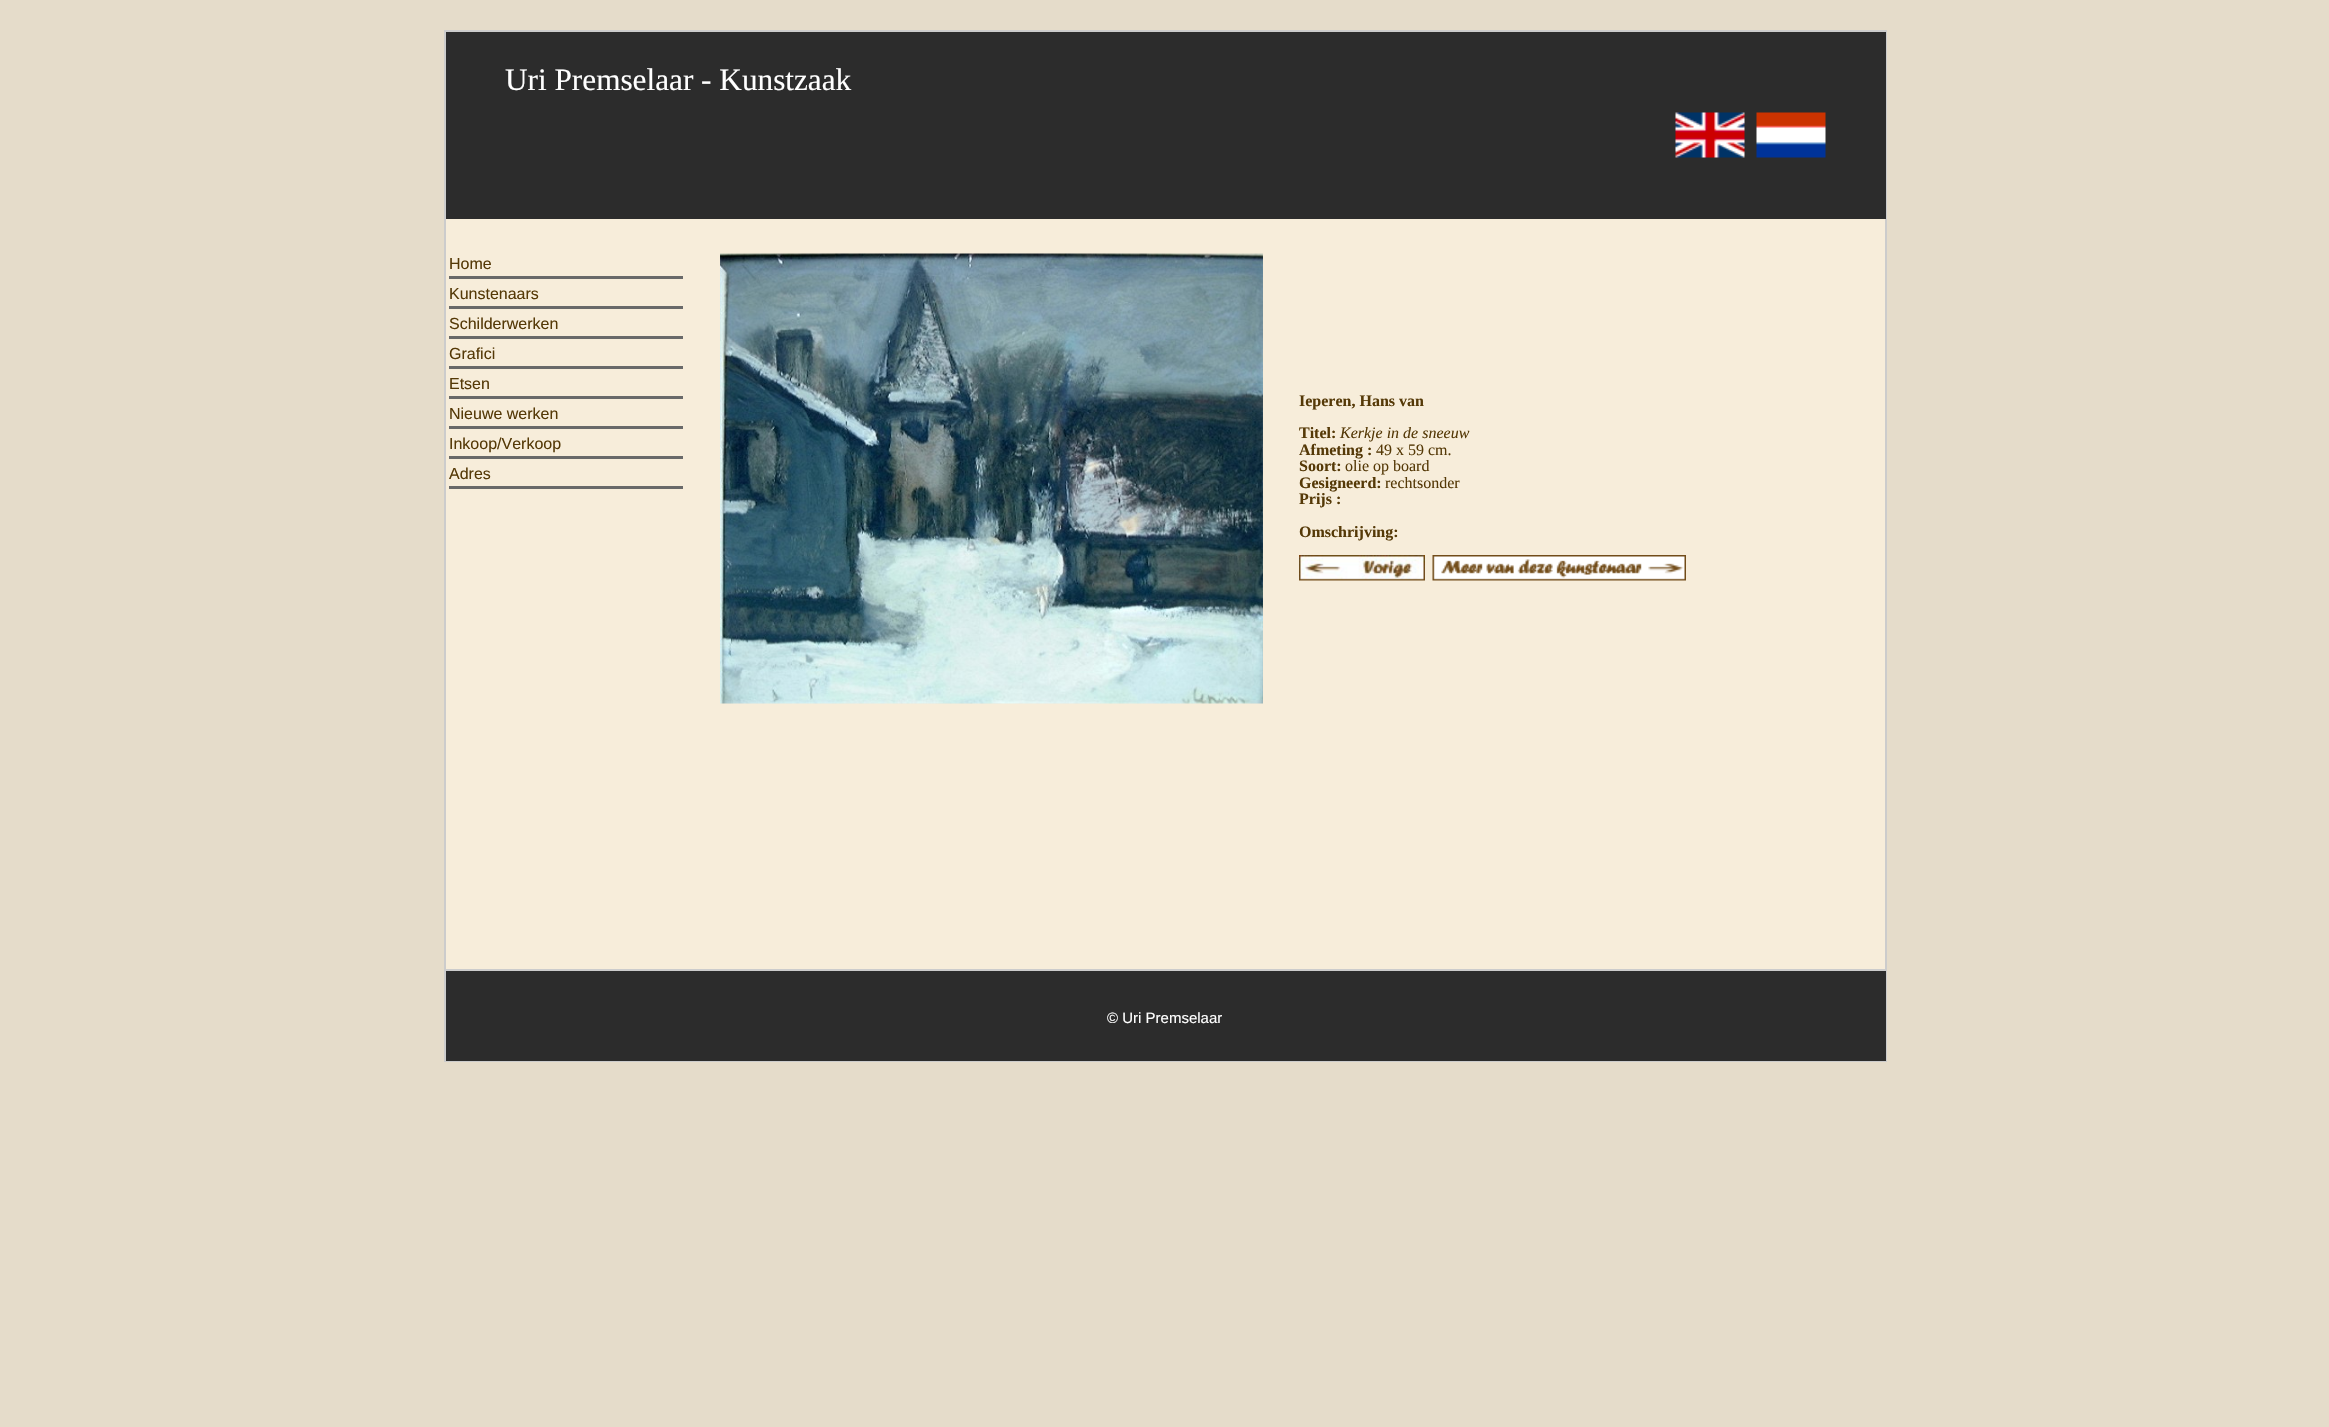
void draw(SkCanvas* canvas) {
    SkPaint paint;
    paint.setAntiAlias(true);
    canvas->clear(0xFFE5DCCA);
    paint.setColor(0xFFF7EDDA);
    canvas->drawRect(SkRect::MakeXYWH(446, 219, 1439, 750), paint);
    paint.setStyle(SkPaint::kStroke_Style);
    paint.setStrokeWidth(2);
    paint.setColor(0xFFCCCCCC);
    canvas->drawRect(SkRect::MakeXYWH(445, 31, 1441, 1030), paint);
    paint.setStyle(SkPaint::kFill_Style);
    paint.setColor(0xFF2C2C2C);
    canvas->drawRect(SkRect::MakeXYWH(446, 32, 1440, 187), paint);
    SkFont font1(fontMgr->matchFamilyStyle("Liberation Serif", SkFontStyle::Normal()), 31.25f);
    font1.setSubpixel(true);
    paint.setColor(0xFFFFFFFF);
    canvas->drawString("Uri Premselaar - Kunstzaak", 505, 90, font1, paint);
    canvas->drawImageRect(SkImages::DeferredFromEncodedData(SkData::MakeFromFileName("img1.png")), SkRect::MakeXYWH(1675, 112, 70, 46), SkSamplingOptions());
    canvas->drawImageRect(SkImages::DeferredFromEncodedData(SkData::MakeFromFileName("img2.png")), SkRect::MakeXYWH(1756, 112, 70, 46), SkSamplingOptions());
    SkFont font2(fontMgr->matchFamilyStyle("Liberation Sans", SkFontStyle::Normal()), 16);
    font2.setSubpixel(true);
    paint.setColor(0xFF553907);
    canvas->drawString("Home", 449, 269, font2, paint);
    paint.setColor(0xFF696969);
    canvas->drawRect(SkRect::MakeXYWH(449, 276, 234, 3), paint);
    paint.setColor(0xFF553907);
    canvas->drawString("Kunstenaars", 449, 299, font2, paint);
    paint.setColor(0xFF696969);
    canvas->drawRect(SkRect::MakeXYWH(449, 306, 234, 3), paint);
    paint.setColor(0xFF553907);
    canvas->drawString("Schilderwerken", 449, 329, font2, paint);
    paint.setColor(0xFF696969);
    canvas->drawRect(SkRect::MakeXYWH(449, 336, 234, 3), paint);
    paint.setColor(0xFF553907);
    canvas->drawString("Grafici", 449, 359, font2, paint);
    paint.setColor(0xFF696969);
    canvas->drawRect(SkRect::MakeXYWH(449, 366, 234, 3), paint);
    paint.setColor(0xFF553907);
    canvas->drawString("Etsen", 449, 389, font2, paint);
    paint.setColor(0xFF696969);
    canvas->drawRect(SkRect::MakeXYWH(449, 396, 234, 3), paint);
    paint.setColor(0xFF553907);
    canvas->drawString("Nieuwe werken", 449, 419, font2, paint);
    paint.setColor(0xFF696969);
    canvas->drawRect(SkRect::MakeXYWH(449, 426, 234, 3), paint);
    paint.setColor(0xFF553907);
    canvas->drawString("Inkoop/Verkoop", 449, 449, font2, paint);
    paint.setColor(0xFF696969);
    canvas->drawRect(SkRect::MakeXYWH(449, 456, 234, 3), paint);
    paint.setColor(0xFF553907);
    canvas->drawString("Adres", 449, 479, font2, paint);
    paint.setColor(0xFF696969);
    canvas->drawRect(SkRect::MakeXYWH(449, 486, 234, 3), paint);
    canvas->drawImageRect(SkImages::DeferredFromEncodedData(SkData::MakeFromFileName("img3.png")), SkRect::MakeXYWH(720, 253, 543, 451), SkSamplingOptions());
    SkFont font3(fontMgr->matchFamilyStyle("Liberation Serif", SkFontStyle::Bold()), 16);
    font3.setSubpixel(true);
    paint.setColor(0xFF553907);
    canvas->drawString("Ieperen, Hans van", 1299, 406, font3, paint);
    canvas->drawString("Titel:", 1299, 438, font3, paint);
    SkFont font4(fontMgr->matchFamilyStyle("Liberation Serif", SkFontStyle::Italic()), 16);
    font4.setSubpixel(true);
    canvas->drawString("Kerkje in de sneeuw", 1340, 438, font4, paint);
    canvas->drawString("Afmeting :", 1299, 455, font3, paint);
    SkFont font5(fontMgr->matchFamilyStyle("Liberation Serif", SkFontStyle::Normal()), 16);
    font5.setSubpixel(true);
    canvas->drawString("49 x 59 cm.", 1376, 455, font5, paint);
    canvas->drawString("Soort:", 1299, 471, font3, paint);
    canvas->drawString("olie op board", 1345, 471, font5, paint);
    canvas->drawString("Gesigneerd:", 1299, 488, font3, paint);
    canvas->drawString("rechtsonder", 1385, 488, font5, paint);
    canvas->drawString("Prijs :", 1299, 504, font3, paint);
    canvas->drawString("Omschrijving:", 1299, 537, font3, paint);
    canvas->drawImageRect(SkImages::DeferredFromEncodedData(SkData::MakeFromFileName("img4.png")), SkRect::MakeXYWH(1299, 555, 126, 26), SkSamplingOptions());
    canvas->drawImageRect(SkImages::DeferredFromEncodedData(SkData::MakeFromFileName("img5.png")), SkRect::MakeXYWH(1432, 555, 254, 26), SkSamplingOptions());
    paint.setColor(0xFF2C2C2C);
    canvas->drawRect(SkRect::MakeXYWH(446, 971, 1440, 90), paint);
    paint.setColor(0xFFCCCCCC);
    canvas->drawRect(SkRect::MakeXYWH(446, 969, 1440, 2), paint);
    SkFont font6(fontMgr->matchFamilyStyle("Liberation Sans", SkFontStyle::Normal()), 15);
    font6.setSubpixel(true);
    paint.setColor(0xFFFFFFFF);
    canvas->drawString("© Uri Premselaar", 1107, 1023, font6, paint);
}
